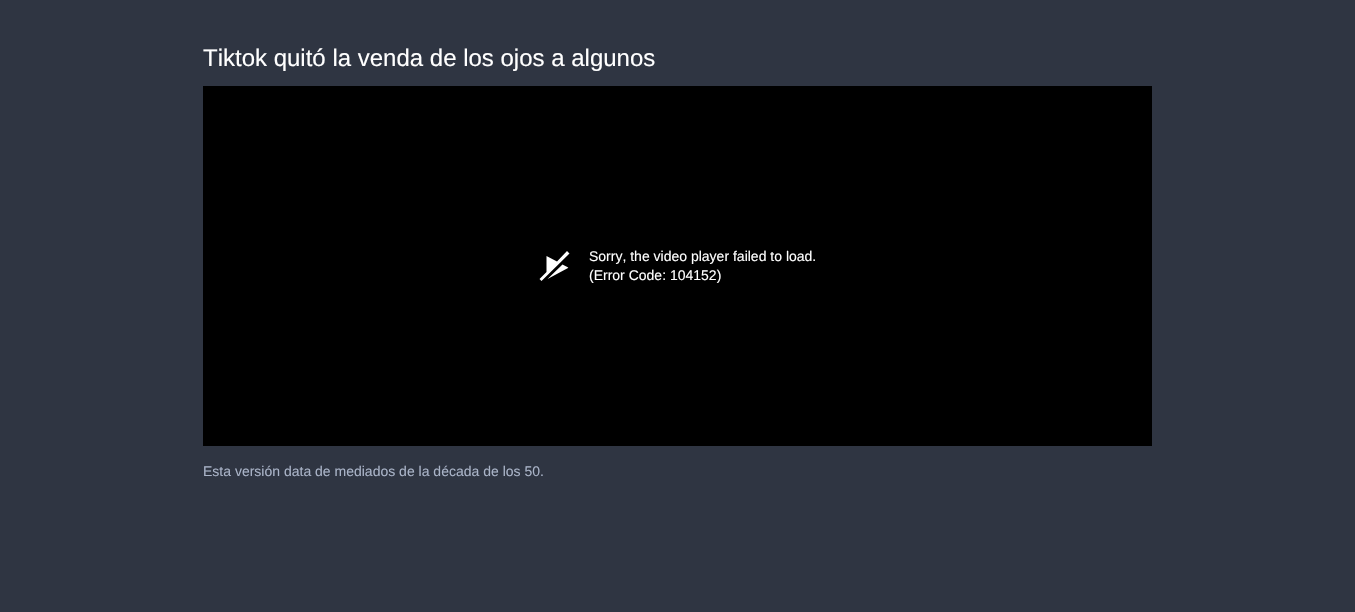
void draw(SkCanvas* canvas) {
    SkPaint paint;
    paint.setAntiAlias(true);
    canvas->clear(0xFF2F3542);
    SkFont font1(fontMgr->matchFamilyStyle("Liberation Sans", SkFontStyle::Normal()), 24);
    font1.setSubpixel(true);
    paint.setColor(0xFFFFFFFF);
    canvas->drawString("Tiktok quitó la venda de los ojos a algunos", 203, 66, font1, paint);
    paint.setColor(0xFF000000);
    canvas->drawRect(SkRect::MakeXYWH(203, 86, 949, 360), paint);
    paint.setColor(0xFFFFFFFF);
    canvas->drawPath(SkPathBuilder().moveTo(568, 268).lineTo(547.5f, 279).lineTo(562.5f, 264.5f).cubicTo(568, 267.5f, 569, 267.5f, 568, 268).close().moveTo(567, 251).lineTo(557, 261.5f).lineTo(546.5f, 256).lineTo(546.5f, 272).lineTo(539.5f, 279).lineTo(541.5f, 281).lineTo(569.5f, 253.5f).close().detach(), paint);
    SkFont font2(fontMgr->matchFamilyStyle("Liberation Sans", SkFontStyle::Normal()), 14);
    font2.setSubpixel(true);
    canvas->drawString("Sorry, the video player failed to load.", 589, 261, font2, paint);
    canvas->drawString("(Error Code: 104152)", 589, 280, font2, paint);
    paint.setColor(0xFFAAB4C8);
    canvas->drawString("Esta versión data de mediados de la década de los 50.", 203, 476, font2, paint);
}
